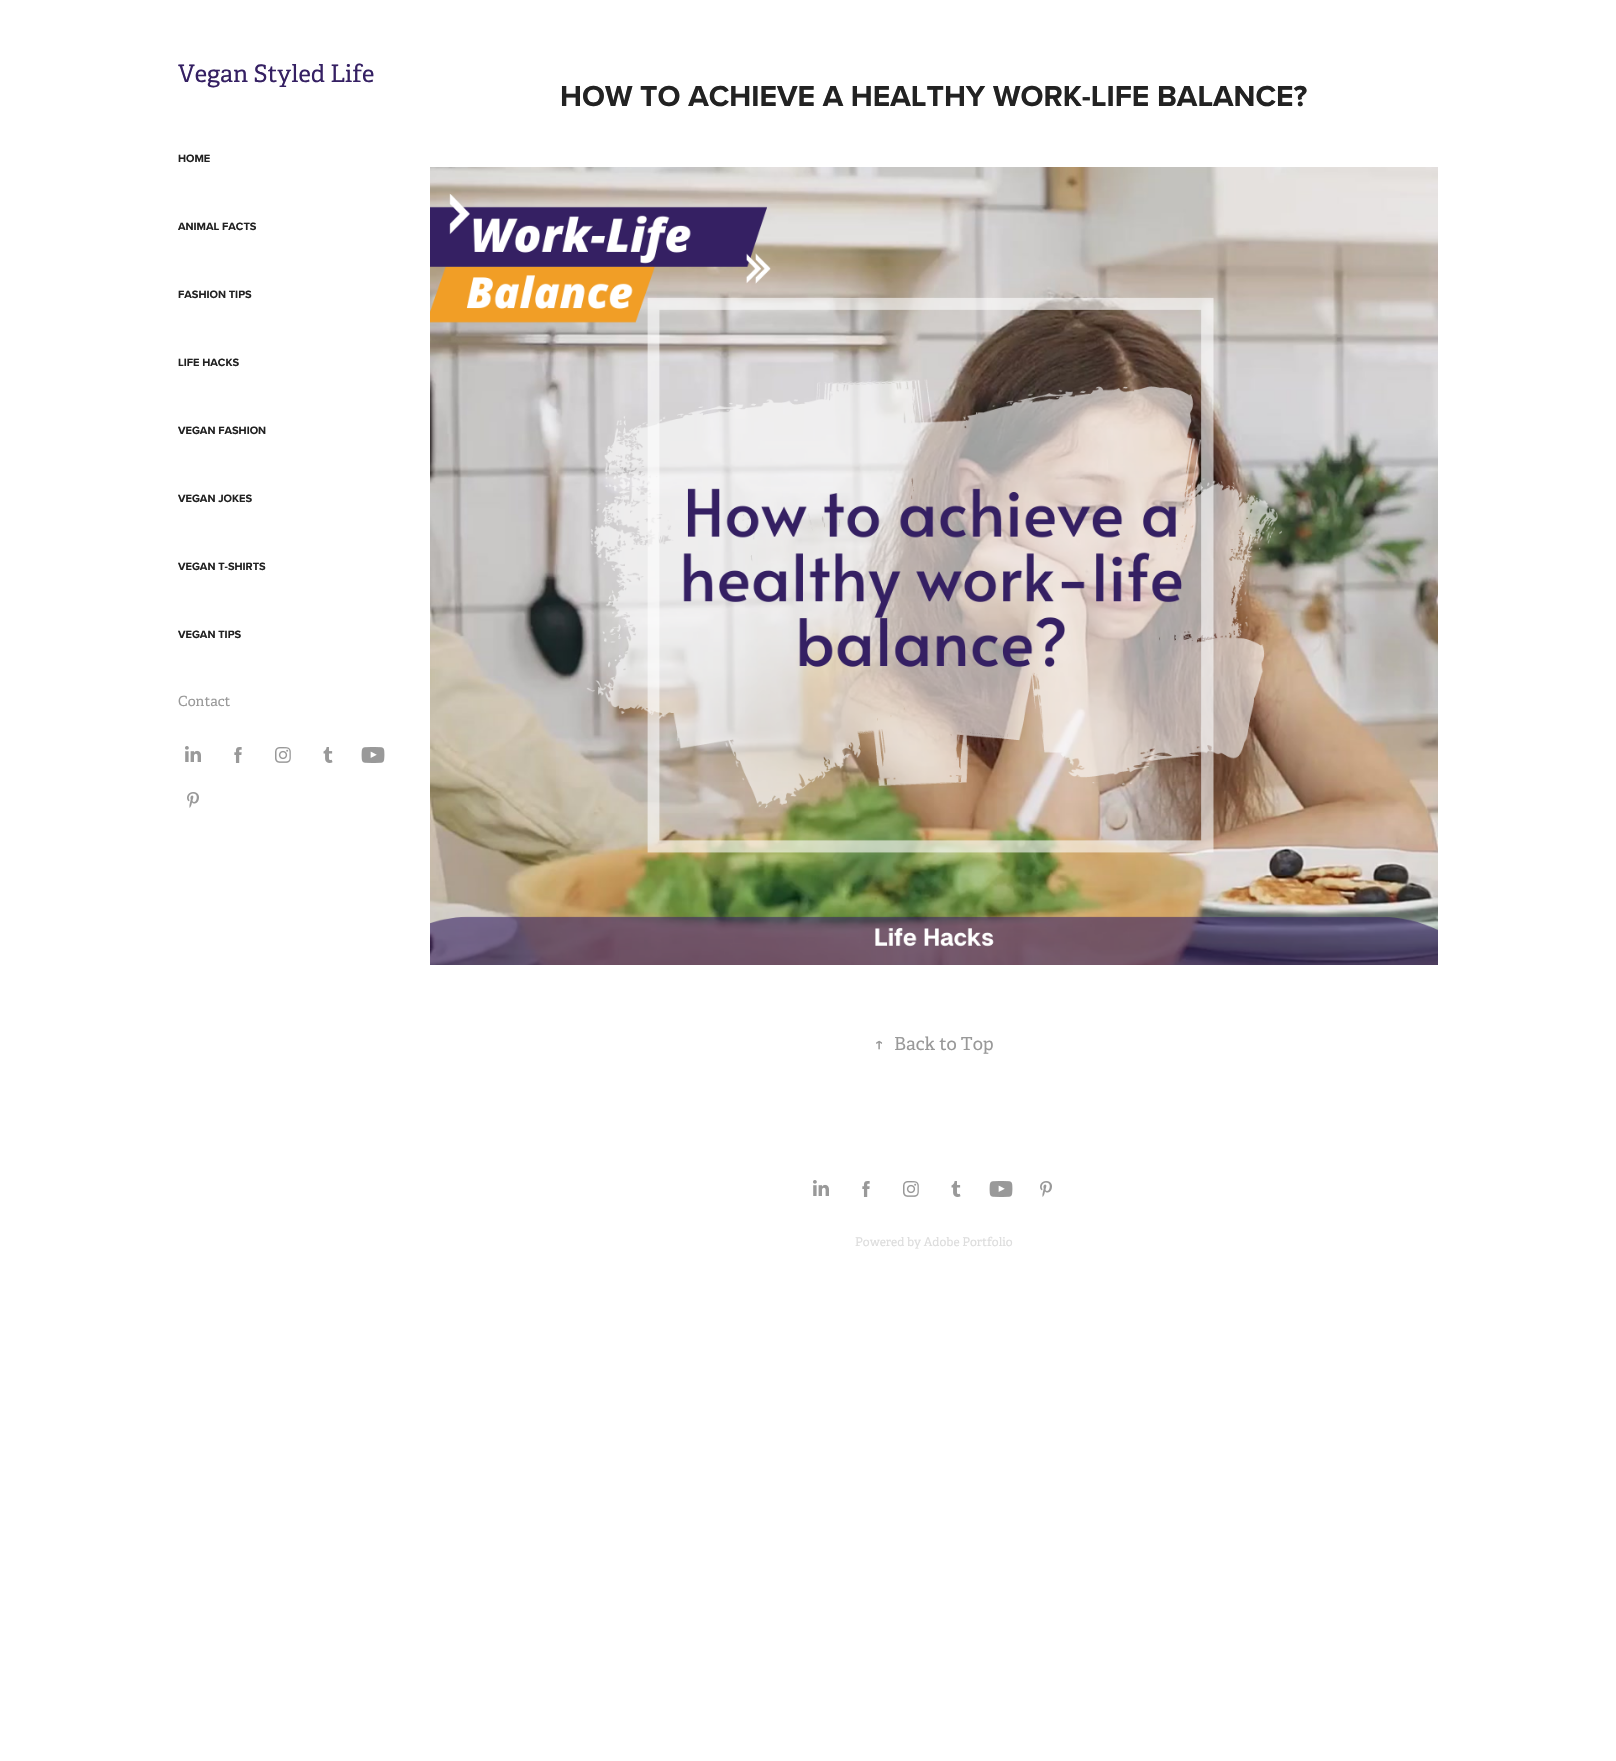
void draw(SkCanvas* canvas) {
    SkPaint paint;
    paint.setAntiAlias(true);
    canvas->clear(0xFFFFFFFF);
    SkFont font1(fontMgr->matchFamilyStyle("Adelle", SkFontStyle::Normal()), 24);
    font1.setSubpixel(true);
    paint.setColor(0xFF352063);
    canvas->drawString("Vegan Styled Life", 178, 82, font1, paint);
    SkFont font2(fontMgr->matchFamilyStyle("Proxima Nova", SkFontStyle::Bold()), 11);
    font2.setSubpixel(true);
    paint.setColor(0xFF222222);
    canvas->drawString("HOME", 178, 162, font2, paint);
    canvas->drawString("ANIMAL FACTS", 178, 230, font2, paint);
    canvas->drawString("FASHION TIPS", 178, 298, font2, paint);
    canvas->drawString("LIFE HACKS", 178, 366, font2, paint);
    canvas->drawString("VEGAN FASHION", 178, 434, font2, paint);
    canvas->drawString("VEGAN JOKES", 178, 502, font2, paint);
    canvas->drawString("VEGAN T-SHIRTS", 178, 570, font2, paint);
    canvas->drawString("VEGAN TIPS", 178, 638, font2, paint);
    SkFont font3(fontMgr->matchFamilyStyle("Adelle", SkFontStyle::Normal()), 14);
    font3.setSubpixel(true);
    paint.setColor(0xFF999999);
    canvas->drawString("Contact", 178, 706, font3, paint);
    canvas->drawImageRect(SkImages::DeferredFromEncodedData(SkData::MakeFromFileName("img1.png")), SkRect::MakeXYWH(185, 746, 16, 16), SkSamplingOptions());
    canvas->drawImageRect(SkImages::DeferredFromEncodedData(SkData::MakeFromFileName("img2.png")), SkRect::MakeXYWH(234, 747, 8, 16), SkSamplingOptions());
    canvas->drawImageRect(SkImages::DeferredFromEncodedData(SkData::MakeFromFileName("img3.png")), SkRect::MakeXYWH(275, 747, 16, 16), SkSamplingOptions());
    canvas->drawImageRect(SkImages::DeferredFromEncodedData(SkData::MakeFromFileName("img4.png")), SkRect::MakeXYWH(323, 747, 10, 16), SkSamplingOptions());
    canvas->drawImageRect(SkImages::DeferredFromEncodedData(SkData::MakeFromFileName("img5.png")), SkRect::MakeXYWH(361, 747, 24, 16), SkSamplingOptions());
    canvas->drawImageRect(SkImages::DeferredFromEncodedData(SkData::MakeFromFileName("img6.png")), SkRect::MakeXYWH(187, 792, 12, 16), SkSamplingOptions());
    SkFont font4(fontMgr->matchFamilyStyle("Proxima Nova", SkFontStyle::Bold()), 30);
    font4.setSubpixel(true);
    paint.setColor(0xFF222222);
    canvas->drawString("HOW TO ACHIEVE A HEALTHY WORK-LIFE BALANCE?", 560, 106, font4, paint);
    canvas->drawImageRect(SkImages::DeferredFromEncodedData(SkData::MakeFromFileName("img7.png")), SkRect::MakeXYWH(430, 167, 1008, 798), SkSamplingOptions());
    SkFont font5(fontMgr->matchFamilyStyle("Adelle", SkFontStyle::Normal()), 18);
    font5.setSubpixel(true);
    paint.setColor(0xFF999999);
    canvas->drawString("↑", 874, 1050, font5, paint);
    canvas->drawString("Back to Top", 894, 1050, font5, paint);
    canvas->drawImageRect(SkImages::DeferredFromEncodedData(SkData::MakeFromFileName("img1.png")), SkRect::MakeXYWH(813, 1180, 16, 16), SkSamplingOptions());
    canvas->drawImageRect(SkImages::DeferredFromEncodedData(SkData::MakeFromFileName("img2.png")), SkRect::MakeXYWH(862, 1181, 8, 16), SkSamplingOptions());
    canvas->drawImageRect(SkImages::DeferredFromEncodedData(SkData::MakeFromFileName("img3.png")), SkRect::MakeXYWH(903, 1181, 16, 16), SkSamplingOptions());
    canvas->drawImageRect(SkImages::DeferredFromEncodedData(SkData::MakeFromFileName("img4.png")), SkRect::MakeXYWH(951, 1181, 10, 16), SkSamplingOptions());
    canvas->drawImageRect(SkImages::DeferredFromEncodedData(SkData::MakeFromFileName("img5.png")), SkRect::MakeXYWH(989, 1181, 24, 16), SkSamplingOptions());
    canvas->drawImageRect(SkImages::DeferredFromEncodedData(SkData::MakeFromFileName("img6.png")), SkRect::MakeXYWH(1040, 1181, 12, 16), SkSamplingOptions());
    SkFont font6(fontMgr->matchFamilyStyle("Adelle", SkFontStyle::Normal()), 12);
    font6.setSubpixel(true);
    paint.setColor(0xFFDDDDDD);
    canvas->drawString("Powered by Adobe Portfolio", 855, 1246, font6, paint);
}
